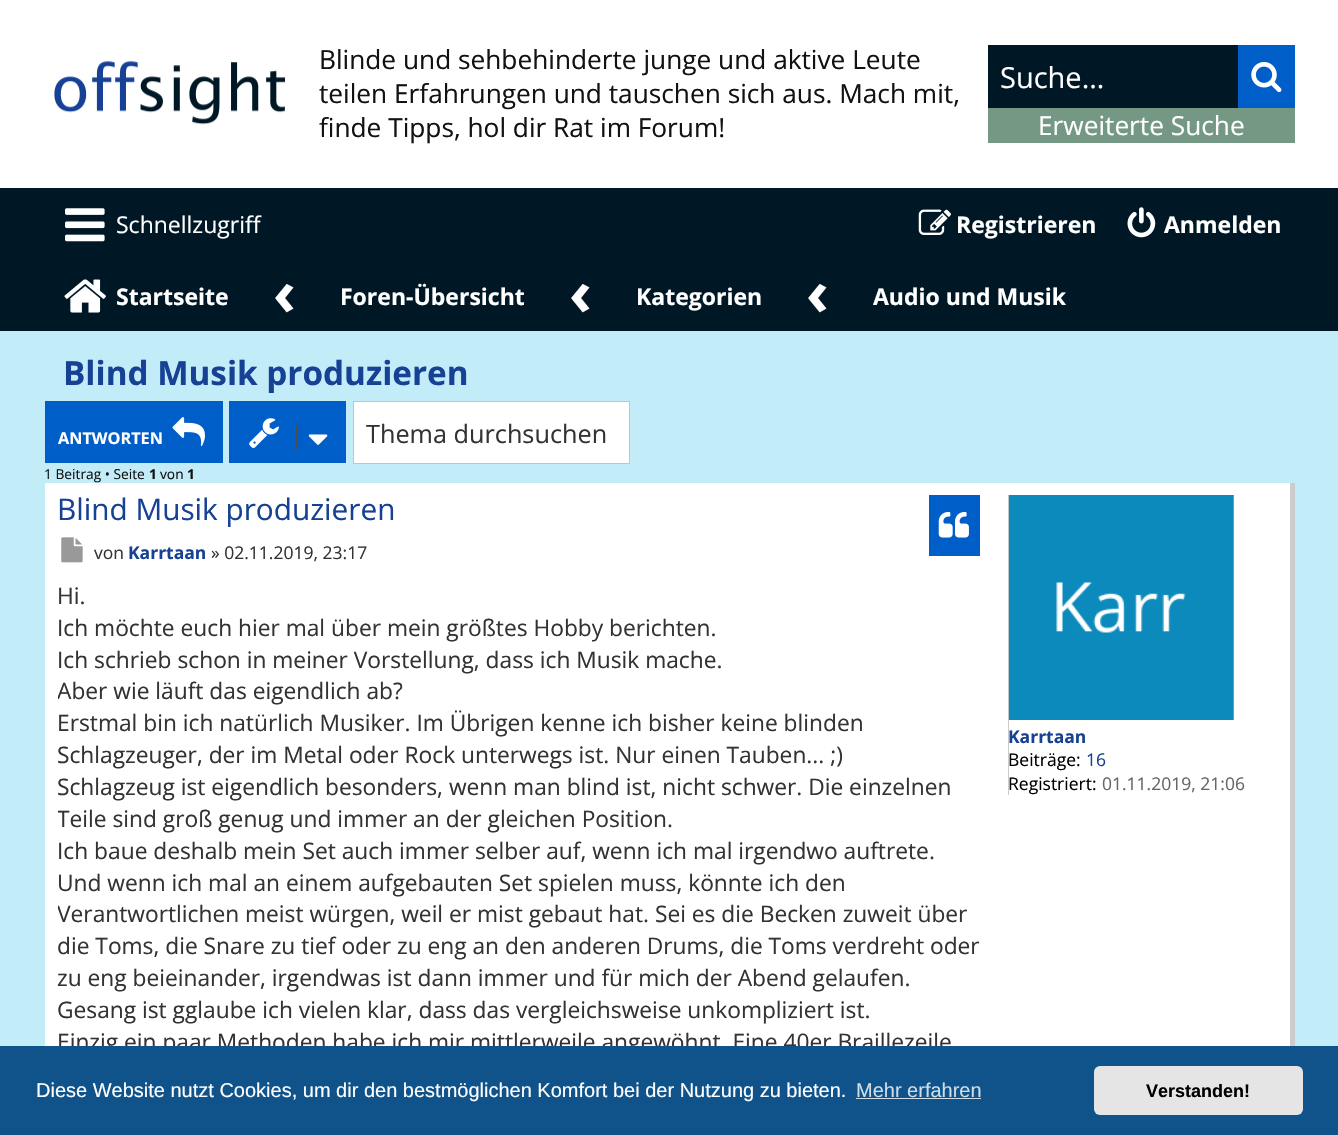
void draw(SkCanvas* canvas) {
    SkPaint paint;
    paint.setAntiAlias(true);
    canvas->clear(0xFFC2ECF8);
    paint.setColor(0xFFFFFFFF);
    canvas->drawRect(SkRect::MakeXYWH(0, 0, 1338, 188), paint);
    canvas->drawImageRect(SkImages::DeferredFromEncodedData(SkData::MakeFromFileName("img1.png")), SkRect::MakeXYWH(54, 61, 232, 64), SkSamplingOptions());
    SkFont font1(fontMgr->matchFamilyStyle("Open Sans", SkFontStyle::Normal()), 26.25f);
    font1.setSubpixel(true);
    paint.setColor(0xFF121212);
    canvas->drawString("Blinde und sehbehinderte junge und aktive Leute", 319, 69, font1, paint);
    canvas->drawString("teilen Erfahrungen und tauschen sich aus. Mach mit,", 319, 103, font1, paint);
    canvas->drawString("finde Tipps, hol dir Rat im Forum!", 319, 137, font1, paint);
    paint.setColor(0xFF001826);
    canvas->drawRect(SkRect::MakeXYWH(988, 45, 250, 63), paint);
    SkFont font2(fontMgr->matchFamilyStyle("Open Sans", SkFontStyle::Normal()), 29);
    font2.setSubpixel(true);
    paint.setColor(0xFFFFFFFF);
    canvas->drawString("Suche…", 1000, 88, font2, paint);
    paint.setColor(0xFF005EC9);
    canvas->drawRect(SkRect::MakeXYWH(1238, 45, 57, 63), paint);
    canvas->drawImageRect(SkImages::DeferredFromEncodedData(SkData::MakeFromFileName("img2.png")), SkRect::MakeXYWH(1251, 62, 31, 31), SkSamplingOptions());
    paint.setColor(0xFF759885);
    canvas->drawRect(SkRect::MakeXYWH(988, 108, 307, 35), paint);
    paint.setColor(0xFFFFFFFF);
    canvas->drawString("Erweiterte Suche", 1038, 135, font1, paint);
    paint.setColor(0xFF001826);
    canvas->drawRect(SkRect::MakeXYWH(0, 188, 1338, 143), paint);
    canvas->drawImageRect(SkImages::DeferredFromEncodedData(SkData::MakeFromFileName("img3.png")), SkRect::MakeXYWH(65, 208, 40, 34), SkSamplingOptions());
    SkFont font3(fontMgr->matchFamilyStyle("Open Sans", SkFontStyle::Normal()), 23);
    font3.setSubpixel(true);
    paint.setColor(0xFFFFFFFF);
    canvas->drawString("Schnellzugriff", 116, 233, font3, paint);
    canvas->drawImageRect(SkImages::DeferredFromEncodedData(SkData::MakeFromFileName("img4.png")), SkRect::MakeXYWH(918, 209, 33, 26), SkSamplingOptions());
    SkFont font4(fontMgr->matchFamilyStyle("Open Sans", SkFontStyle::Bold()), 23);
    font4.setSubpixel(true);
    canvas->drawString("Registrieren", 956, 233, font4, paint);
    canvas->drawImageRect(SkImages::DeferredFromEncodedData(SkData::MakeFromFileName("img5.png")), SkRect::MakeXYWH(1127, 207, 29, 31), SkSamplingOptions());
    canvas->drawString("Anmelden", 1164, 233, font4, paint);
    canvas->drawImageRect(SkImages::DeferredFromEncodedData(SkData::MakeFromFileName("img6.png")), SkRect::MakeXYWH(64, 279, 42, 34), SkSamplingOptions());
    canvas->drawString("Startseite", 116, 305, font4, paint);
    SkFont font5(fontMgr->matchFamilyStyle("Open Sans", SkFontStyle::Bold()), 62);
    font5.setSubpixel(true);
    canvas->drawString("‹", 273, 315, font5, paint);
    canvas->drawString("Foren-Übersicht", 340, 305, font4, paint);
    canvas->drawString("‹", 569, 315, font5, paint);
    canvas->drawString("Kategorien", 636, 305, font4, paint);
    canvas->drawString("‹", 806, 315, font5, paint);
    canvas->drawString("Audio und Musik", 873, 305, font4, paint);
    SkFont font6(fontMgr->matchFamilyStyle("Open Sans", SkFontStyle::Bold()), 33.25f);
    font6.setSubpixel(true);
    paint.setColor(0xFF164194);
    canvas->drawString("Blind Musik produzieren", 63, 385, font6, paint);
    paint.setColor(0xFF005EC9);
    canvas->drawRect(SkRect::MakeXYWH(45, 401, 178, 62), paint);
    SkFont font7(fontMgr->matchFamilyStyle("Open Sans", SkFontStyle::Bold()), 16.25f);
    font7.setSubpixel(true);
    paint.setColor(0xFFFFFFFF);
    canvas->drawString("ANTWORTEN", 58, 444, font7, paint);
    canvas->drawImageRect(SkImages::DeferredFromEncodedData(SkData::MakeFromFileName("img7.png")), SkRect::MakeXYWH(172, 417, 33, 29), SkSamplingOptions());
    paint.setColor(0xFF005EC9);
    canvas->drawRect(SkRect::MakeXYWH(229, 401, 117, 62), paint);
    canvas->drawImageRect(SkImages::DeferredFromEncodedData(SkData::MakeFromFileName("img8.png")), SkRect::MakeXYWH(249, 418, 30, 30), SkSamplingOptions());
    paint.setColor(0xFF4D4D4D);
    canvas->drawRect(SkRect::MakeXYWH(296, 426, 1, 23), paint);
    canvas->drawImageRect(SkImages::DeferredFromEncodedData(SkData::MakeFromFileName("img9.png")), SkRect::MakeXYWH(308, 434, 20, 11), SkSamplingOptions());
    paint.setColor(0xFFFFFFFF);
    canvas->drawRect(SkRect::MakeXYWH(353.5f, 401.5f, 276, 62), paint);
    paint.setStyle(SkPaint::kStroke_Style);
    paint.setStrokeWidth(1);
    paint.setColor(0xFFC7C3BF);
    canvas->drawRect(SkRect::MakeXYWH(353.5f, 401.5f, 276, 62), paint);
    SkFont font8(fontMgr->matchFamilyStyle("Open Sans", SkFontStyle::Normal()), 25.25f);
    font8.setSubpixel(true);
    paint.setStyle(SkPaint::kFill_Style);
    paint.setColor(0xFF333333);
    canvas->drawString("Thema durchsuchen", 366, 443, font8, paint);
    SkFont font9(fontMgr->matchFamilyStyle("Open Sans", SkFontStyle::Normal()), 13.75f);
    font9.setSubpixel(true);
    paint.setColor(0xFF121212);
    canvas->drawString("1 Beitrag • Seite", 44, 479, font9, paint);
    SkFont font10(fontMgr->matchFamilyStyle("Open Sans", SkFontStyle::Bold()), 13.75f);
    font10.setSubpixel(true);
    canvas->drawString("1", 149, 479, font10, paint);
    canvas->drawString("von", 160, 479, font9, paint);
    canvas->drawString("1", 187, 479, font10, paint);
    paint.setColor(0xFFFFFFFF);
    canvas->drawRect(SkRect::MakeXYWH(45, 483, 1245, 563), paint);
    paint.setColor(0xFFCCCCCC);
    canvas->drawRect(SkRect::MakeXYWH(1290, 483, 5, 563), paint);
    SkFont font11(fontMgr->matchFamilyStyle("Open Sans", SkFontStyle::Normal()), 29.75f);
    font11.setSubpixel(true);
    paint.setColor(0xFF164194);
    canvas->drawString("Blind Musik produzieren", 57, 520, font11, paint);
    paint.setColor(0xFF005EC9);
    canvas->drawRect(SkRect::MakeXYWH(929, 495, 51, 61), paint);
    canvas->drawImageRect(SkImages::DeferredFromEncodedData(SkData::MakeFromFileName("img10.png")), SkRect::MakeXYWH(938, 511, 31, 27), SkSamplingOptions());
    canvas->drawImageRect(SkImages::DeferredFromEncodedData(SkData::MakeFromFileName("img11.png")), SkRect::MakeXYWH(61, 537, 22, 26), SkSamplingOptions());
    SkFont font12(fontMgr->matchFamilyStyle("Open Sans", SkFontStyle::Normal()), 17.5f);
    font12.setSubpixel(true);
    paint.setColor(0xFF333333);
    canvas->drawString("von", 94, 559, font12, paint);
    SkFont font13(fontMgr->matchFamilyStyle("Open Sans", SkFontStyle::Bold()), 17.5f);
    font13.setSubpixel(true);
    paint.setColor(0xFF164194);
    canvas->drawString("Karrtaan", 128, 559, font13, paint);
    paint.setColor(0xFF333333);
    canvas->drawString("» 02.11.2019, 23:17", 211, 559, font12, paint);
    SkFont font14(fontMgr->matchFamilyStyle("Open Sans", SkFontStyle::Normal()), 22.75f);
    font14.setSubpixel(true);
    canvas->drawString("Hi.", 57, 604, font14, paint);
    canvas->drawString("Ich möchte euch hier mal über mein größtes Hobby berichten.", 57, 636, font14, paint);
    canvas->drawString("Ich schrieb schon in meiner Vorstellung, dass ich Musik mache.", 57, 668, font14, paint);
    canvas->save();
    canvas->clipRect(SkRect::MakeXYWH(58, 580, 926, 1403));
    canvas->drawString("Aber wie läuft das eigendlich ab?", 57, 699, font14, paint);
    canvas->restore();
    canvas->drawString("Erstmal bin ich natürlich Musiker. Im Übrigen kenne ich bisher keine blinden", 57, 731, font14, paint);
    canvas->drawString("Schlagzeuger, der im Metal oder Rock unterwegs ist. Nur einen Tauben... ;)", 57, 763, font14, paint);
    canvas->drawString("Schlagzeug ist eigendlich besonders, wenn man blind ist, nicht schwer. Die einzelnen", 57, 795, font14, paint);
    canvas->save();
    canvas->clipRect(SkRect::MakeXYWH(58, 580, 926, 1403));
    canvas->drawString("Teile sind groß genug und immer an der gleichen Position.", 57, 827, font14, paint);
    canvas->restore();
    canvas->drawString("Ich baue deshalb mein Set auch immer selber auf, wenn ich mal irgendwo auftrete.", 57, 859, font14, paint);
    canvas->drawString("Und wenn ich mal an einem aufgebauten Set spielen muss, könnte ich den", 57, 891, font14, paint);
    canvas->save();
    canvas->clipRect(SkRect::MakeXYWH(58, 580, 926, 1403));
    canvas->drawString("Verantwortlichen meist würgen, weil er mist gebaut hat. Sei es die Becken zuweit über", 57, 922, font14, paint);
    canvas->restore();
    canvas->drawString("die Toms, die Snare zu tief oder zu eng an den anderen Drums, die Toms verdreht oder", 57, 954, font14, paint);
    canvas->drawString("zu eng beieinander, irgendwas ist dann immer und für mich der Abend gelaufen.", 57, 986, font14, paint);
    canvas->drawString("Gesang ist gglaube ich vielen klar, dass das vergleichsweise unkompliziert ist.", 57, 1018, font14, paint);
    canvas->drawString("Einzig ein paar Methoden habe ich mir mittlerweile angewöhnt. Eine 40er Braillezeile", 57, 1050, font14, paint);
    paint.setColor(0xFFCCCCCC);
    canvas->drawRect(SkRect::MakeXYWH(1008, 495, 1, 300), paint);
    canvas->drawImageRect(SkImages::DeferredFromEncodedData(SkData::MakeFromFileName("img12.png")), SkRect::MakeXYWH(1008, 495, 226, 225), SkSamplingOptions());
    paint.setColor(0xFF164194);
    canvas->drawString("Karrtaan", 1008, 743, font13, paint);
    paint.setColor(0xFF000000);
    canvas->drawString("Beiträge:", 1008, 766, font12, paint);
    paint.setColor(0xFF164194);
    canvas->drawString("16", 1086, 766, font12, paint);
    paint.setColor(0xFF000000);
    canvas->drawString("Registriert:", 1008, 790, font12, paint);
    paint.setColor(0xFF666666);
    canvas->drawString("01.11.2019, 21:06", 1102, 790, font12, paint);
    paint.setColor(0xFF0F538A);
    canvas->drawRect(SkRect::MakeXYWH(0, 1046, 1338, 89), paint);
    SkFont font15(fontMgr->matchFamilyStyle("Liberation Sans", SkFontStyle::Normal()), 20);
    font15.setSubpixel(true);
    paint.setColor(0xFFFFFFFF);
    canvas->drawString("Diese Website nutzt Cookies, um dir den bestmöglichen Komfort bei der Nutzung zu bieten.", 36, 1097, font15, paint);
    paint.setColor(0xFFCFDDE8);
    canvas->drawString("Mehr erfahren", 856, 1097, font15, paint);
    canvas->drawRect(SkRect::MakeXYWH(856, 1098, 125, 1), paint);
    paint.setColor(0xFFE5E5E5);
    canvas->drawRoundRect(SkRect::MakeXYWH(1094, 1066, 209, 49), 6, 6, paint);
    SkFont font16(fontMgr->matchFamilyStyle("Liberation Sans", SkFontStyle::Bold()), 18);
    font16.setSubpixel(true);
    paint.setColor(0xFF000000);
    canvas->drawString("Verstanden!", 1146, 1097, font16, paint);
}
